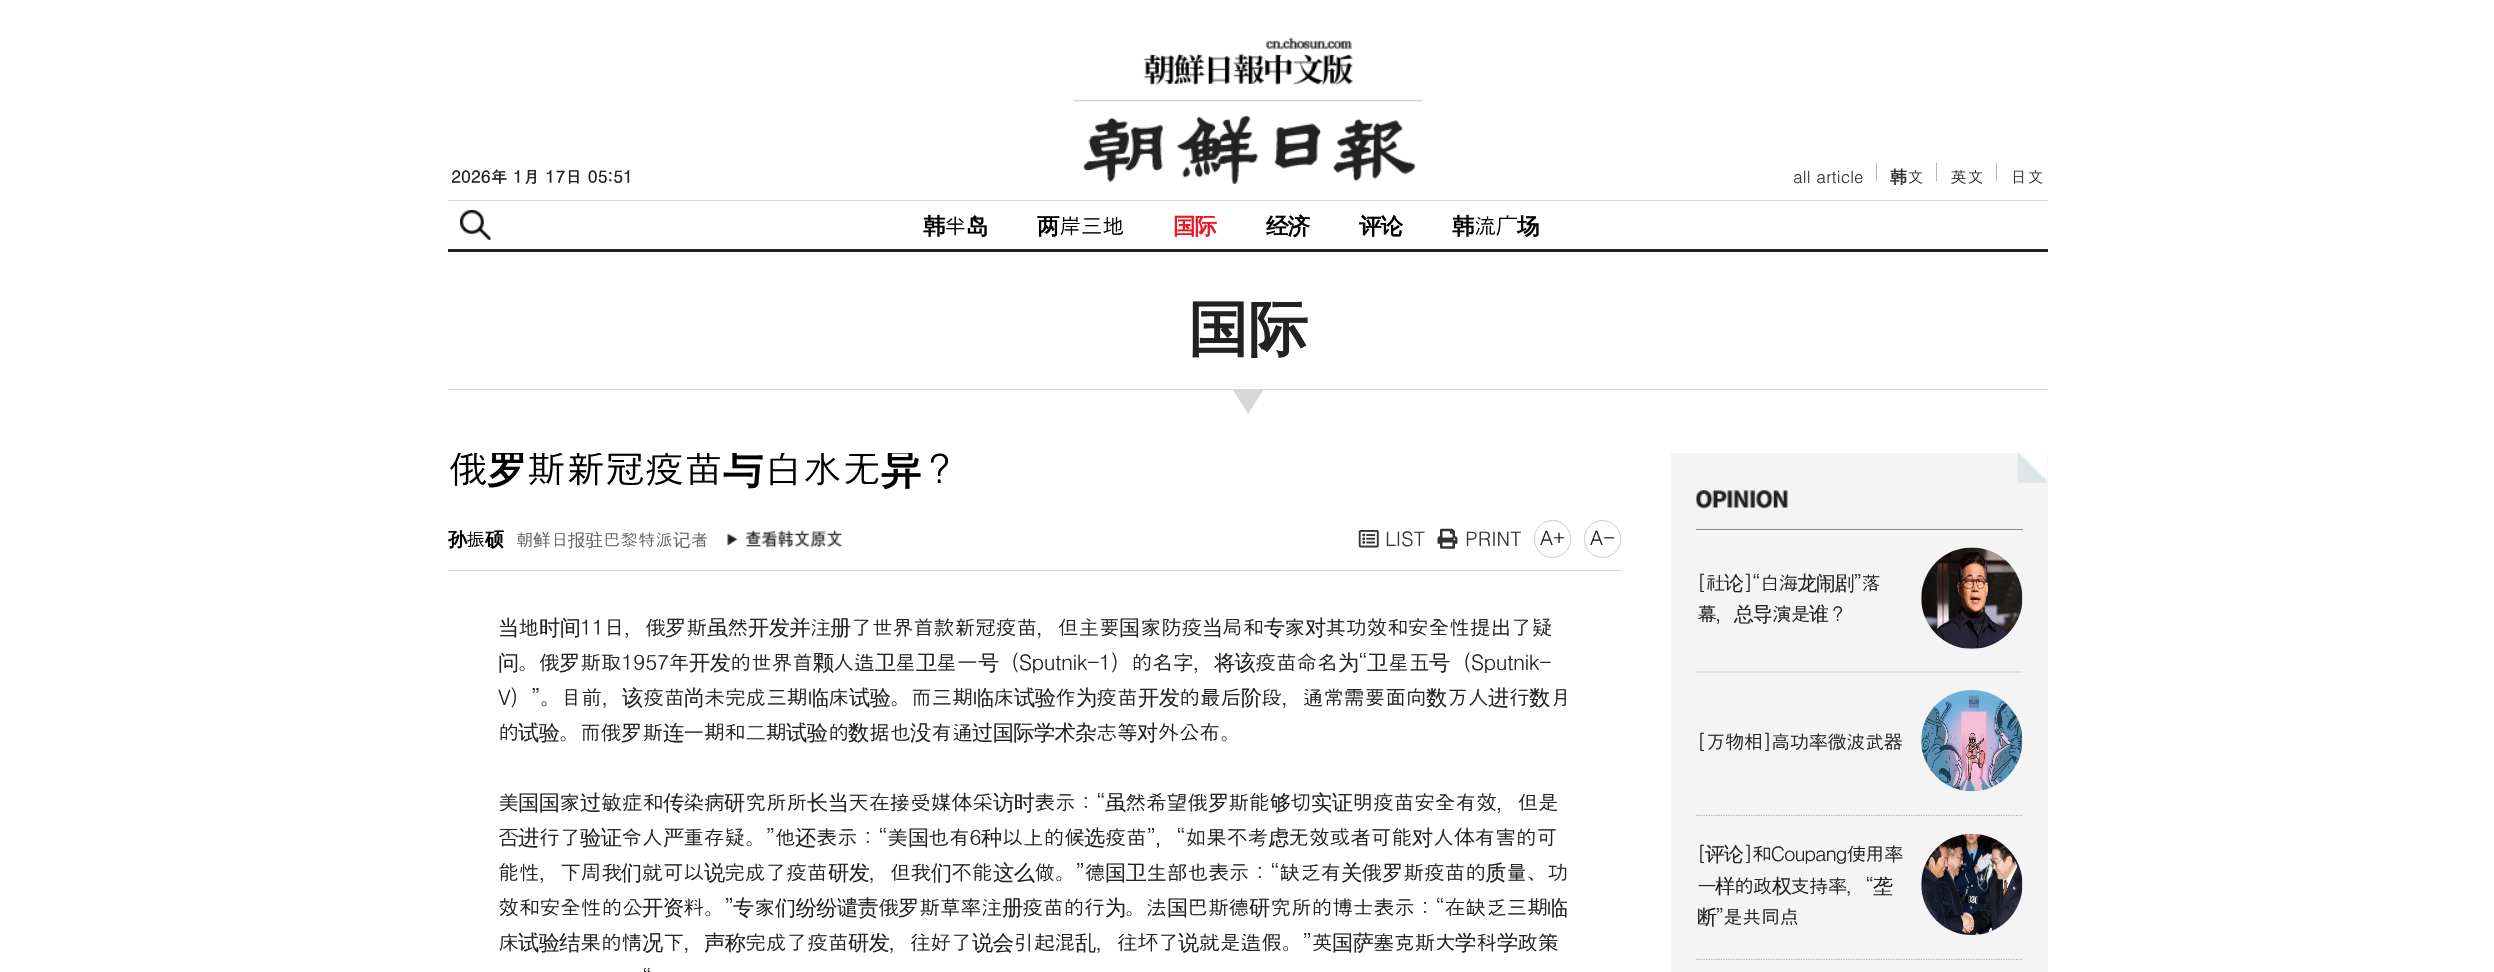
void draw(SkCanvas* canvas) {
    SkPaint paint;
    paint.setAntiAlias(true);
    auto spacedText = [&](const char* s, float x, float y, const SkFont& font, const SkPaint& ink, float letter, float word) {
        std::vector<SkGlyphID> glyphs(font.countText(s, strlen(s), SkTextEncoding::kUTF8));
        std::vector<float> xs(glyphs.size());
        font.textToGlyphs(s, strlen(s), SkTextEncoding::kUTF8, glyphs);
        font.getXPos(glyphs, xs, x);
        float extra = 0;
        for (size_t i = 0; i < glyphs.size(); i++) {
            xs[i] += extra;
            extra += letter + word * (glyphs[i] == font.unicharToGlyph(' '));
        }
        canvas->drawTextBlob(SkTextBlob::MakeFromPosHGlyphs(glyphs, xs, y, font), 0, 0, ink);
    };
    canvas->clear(0xFFFFFFFF);
    SkFont font1(fontMgr->matchFamilyStyle("Dotum", SkFontStyle::Bold()), 16.9f);
    font1.setSubpixel(true);
    paint.setColor(0xFF222222);
    canvas->drawString("2026年 1月 17日 05:51", 451, 183, font1, paint);
    canvas->drawImageRect(SkImages::DeferredFromEncodedData(SkData::MakeFromFileName("img1.png")), SkRect::MakeXYWH(1073, 37, 350, 147), SkSamplingOptions());
    SkFont font2(fontMgr->matchFamilyStyle("Dotum", SkFontStyle::Normal()), 16.9f);
    font2.setSubpixel(true);
    paint.setColor(0xFF333333);
    canvas->drawString("all article", 1793, 183, font2, paint);
    paint.setColor(0xFFB5B5B5);
    canvas->drawRect(SkRect::MakeXYWH(1876, 163, 1, 18), paint);
    SkFont font3(fontMgr->matchFamilyStyle("WenQuanYi Zen Hei", SkFontStyle::Bold()), 16.9f);
    font3.setSubpixel(true);
    paint.setColor(0xFF333333);
    canvas->drawString("韩", 1890, 183, font3, paint);
    canvas->drawString("文", 1907, 183, font2, paint);
    paint.setColor(0xFFB5B5B5);
    canvas->drawRect(SkRect::MakeXYWH(1936, 163, 1, 18), paint);
    paint.setColor(0xFF333333);
    canvas->drawString("英文", 1950, 183, font2, paint);
    paint.setColor(0xFFB5B5B5);
    canvas->drawRect(SkRect::MakeXYWH(1996, 163, 1, 18), paint);
    paint.setColor(0xFF333333);
    canvas->drawString("日文", 2010, 183, font2, paint);
    paint.setColor(0xFFD7D7D7);
    canvas->drawRect(SkRect::MakeXYWH(448, 200, 1600, 1), paint);
    paint.setColor(0xFF222222);
    canvas->drawRect(SkRect::MakeXYWH(448, 249, 1600, 3), paint);
    canvas->drawImageRect(SkImages::DeferredFromEncodedData(SkData::MakeFromFileName("img2.png")), SkRect::MakeXYWH(460, 210, 31, 30), SkSamplingOptions());
    SkFont font4(fontMgr->matchFamilyStyle("WenQuanYi Zen Hei", SkFontStyle::Bold()), 22.5f);
    font4.setSubpixel(true);
    paint.setColor(0xFF000000);
    spacedText("韩", 923, 234, font4, paint, -1, 0);
    SkFont font5(fontMgr->matchFamilyStyle("Dotum", SkFontStyle::Normal()), 22.5f);
    font5.setSubpixel(true);
    spacedText("半", 944, 234, font5, paint, -1, 0);
    spacedText("岛", 966, 234, font4, paint, -1, 0);
    spacedText("两", 1037, 234, font4, paint, -1, 0);
    spacedText("岸三地", 1059, 234, font5, paint, -1, 0);
    paint.setColor(0xFFEE1625);
    spacedText("国际", 1173, 234, font4, paint, -1, 0);
    paint.setColor(0xFF000000);
    spacedText("经济", 1266, 234, font4, paint, -1, 0);
    spacedText("评论", 1359, 234, font4, paint, -1, 0);
    spacedText("韩", 1452, 234, font4, paint, -1, 0);
    spacedText("流广", 1474, 234, font5, paint, -1, 0);
    spacedText("场", 1517, 234, font4, paint, -1, 0);
    paint.setColor(0xFFD7D7D7);
    canvas->drawRect(SkRect::MakeXYWH(448, 389, 1600, 1), paint);
    SkFont font6(fontMgr->matchFamilyStyle("WenQuanYi Zen Hei", SkFontStyle::Bold()), 60);
    font6.setSubpixel(true);
    paint.setColor(0xFF222222);
    canvas->drawString("国际", 1188, 350, font6, paint);
    SkFont font7(fontMgr->matchFamilyStyle("Dotum", SkFontStyle::Bold()), 36);
    font7.setSubpixel(true);
    paint.setColor(0xFFD7D7D7);
    canvas->drawString("▼", 1231, 415, font7, paint);
    canvas->save();
    canvas->clipRect(SkRect::MakeXYWH(448, 453, 1223, 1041));
    SkFont font8(fontMgr->matchFamilyStyle("Dotum", SkFontStyle::Normal()), 40);
    font8.setSubpixel(true);
    paint.setColor(0xFF000000);
    spacedText("俄", 448, 483, font8, paint, -0.6f, 0);
    SkFont font9(fontMgr->matchFamilyStyle("WenQuanYi Zen Hei", SkFontStyle::Bold()), 40);
    font9.setSubpixel(true);
    spacedText("罗", 487, 483, font9, paint, -0.6f, 0);
    spacedText("斯新冠疫苗", 526, 483, font8, paint, -0.6f, 0);
    spacedText("与", 723, 483, font9, paint, -0.6f, 0);
    spacedText("白水无", 763, 483, font8, paint, -0.6f, 0);
    spacedText("异", 881, 483, font9, paint, -0.6f, 0);
    canvas->restore();
    spacedText("？", 920, 483, font8, paint, -0.6f, 0);
    paint.setColor(0xFFD4D4D4);
    canvas->drawRect(SkRect::MakeXYWH(448, 570, 1173, 1), paint);
    SkFont font10(fontMgr->matchFamilyStyle("WenQuanYi Zen Hei", SkFontStyle::Bold()), 19);
    font10.setSubpixel(true);
    paint.setColor(0xFF000000);
    canvas->drawString("孙", 448, 546, font10, paint);
    SkFont font11(fontMgr->matchFamilyStyle("Dotum", SkFontStyle::Normal()), 19);
    font11.setSubpixel(true);
    canvas->drawString("振", 466, 546, font11, paint);
    canvas->drawString("硕", 485, 546, font10, paint);
    SkFont font12(fontMgr->matchFamilyStyle("Dotum", SkFontStyle::Normal()), 17.5f);
    font12.setSubpixel(true);
    paint.setColor(0xFF666666);
    canvas->drawString("朝", 516, 546, font12, paint);
    SkFont font13(fontMgr->matchFamilyStyle("WenQuanYi Zen Hei", SkFontStyle(500, SkFontStyle::kNormal_Width, SkFontStyle::kUpright_Slant)), 17.5f);
    font13.setSubpixel(true);
    canvas->drawString("鲜", 533, 546, font13, paint);
    canvas->drawString("日", 551, 546, font12, paint);
    canvas->drawString("报驻", 568, 546, font13, paint);
    canvas->drawString("巴黎特派", 603, 546, font12, paint);
    canvas->drawString("记", 673, 546, font13, paint);
    canvas->drawString("者", 691, 546, font12, paint);
    canvas->drawImageRect(SkImages::DeferredFromEncodedData(SkData::MakeFromFileName("img3.png")), SkRect::MakeXYWH(727, 530, 116, 18), SkSamplingOptions());
    canvas->drawImageRect(SkImages::DeferredFromEncodedData(SkData::MakeFromFileName("img4.png")), SkRect::MakeXYWH(1358, 530, 21, 18), SkSamplingOptions());
    SkFont font14(fontMgr->matchFamilyStyle("Dotum", SkFontStyle::Normal()), 20);
    font14.setSubpixel(true);
    paint.setColor(0xFF333333);
    canvas->drawString("LIST", 1385, 546, font14, paint);
    canvas->drawImageRect(SkImages::DeferredFromEncodedData(SkData::MakeFromFileName("img5.png")), SkRect::MakeXYWH(1437, 528, 21, 21), SkSamplingOptions());
    canvas->drawString("PRINT", 1465, 546, font14, paint);
    paint.setStyle(SkPaint::kStroke_Style);
    paint.setStrokeWidth(1);
    paint.setColor(0xFFCCCCCC);
    canvas->drawRoundRect(SkRect::MakeXYWH(1534.5f, 520.5f, 36, 37), 18, 18, paint);
    paint.setStyle(SkPaint::kFill_Style);
    paint.setColor(0xFF222222);
    canvas->drawString("A+", 1540, 545, font14, paint);
    paint.setStyle(SkPaint::kStroke_Style);
    paint.setColor(0xFFCCCCCC);
    canvas->drawRoundRect(SkRect::MakeXYWH(1584.5f, 520.5f, 36, 37), 18, 18, paint);
    paint.setStyle(SkPaint::kFill_Style);
    paint.setColor(0xFF222222);
    canvas->drawString("A-", 1590, 545, font14, paint);
    SkFont font15(fontMgr->matchFamilyStyle("WenQuanYi Zen Hei", SkFontStyle(500, SkFontStyle::kNormal_Width, SkFontStyle::kUpright_Slant)), 21.25f);
    font15.setSubpixel(true);
    spacedText("当", 498, 635, font15, paint, -0.6f, 0);
    SkFont font16(fontMgr->matchFamilyStyle("Dotum", SkFontStyle::Normal()), 21.25f);
    font16.setSubpixel(true);
    spacedText("地", 518, 635, font16, paint, -0.6f, 0);
    spacedText("时间", 539, 635, font15, paint, -0.6f, 0);
    spacedText("11日，俄", 580, 635, font16, paint, -0.6f, 0);
    spacedText("罗", 665, 635, font15, paint, -0.6f, 0);
    spacedText("斯", 686, 635, font16, paint, -0.6f, 0);
    spacedText("虽", 707, 635, font15, paint, -0.6f, 0);
    spacedText("然", 727, 635, font16, paint, -0.6f, 0);
    spacedText("开发并", 748, 635, font15, paint, -0.6f, 0);
    spacedText("注", 810, 635, font16, paint, -0.6f, 0);
    spacedText("册", 830, 635, font15, paint, -0.6f, 0);
    spacedText("了世界首款新冠疫苗，但主要", 851, 635, font16, paint, -0.6f, 0);
    spacedText("国", 1119, 635, font15, paint, -0.6f, 0);
    spacedText("家防疫", 1140, 635, font16, paint, -0.6f, 0);
    spacedText("当", 1202, 635, font15, paint, -0.6f, 0);
    spacedText("局和", 1222, 635, font16, paint, -0.6f, 0);
    spacedText("专", 1264, 635, font15, paint, -0.6f, 0);
    spacedText("家", 1284, 635, font16, paint, -0.6f, 0);
    spacedText("对", 1305, 635, font15, paint, -0.6f, 0);
    spacedText("其功效和安全性提出了疑", 1325, 635, font16, paint, -0.6f, 0);
    spacedText("问", 498, 670, font15, paint, -0.6f, 0);
    spacedText("。俄", 518, 670, font16, paint, -0.6f, 0);
    spacedText("罗", 559, 670, font15, paint, -0.6f, 0);
    spacedText("斯取1957年", 580, 670, font16, paint, -0.6f, 0);
    spacedText("开发", 689, 670, font15, paint, -0.6f, 0);
    spacedText("的世界首", 730, 670, font16, paint, -0.6f, 0);
    spacedText("颗", 813, 670, font15, paint, -0.6f, 0);
    spacedText("人造", 833, 670, font16, paint, -0.6f, 0);
    spacedText("卫", 875, 670, font15, paint, -0.6f, 0);
    spacedText("星", 895, 670, font16, paint, -0.6f, 0);
    spacedText("卫", 916, 670, font15, paint, -0.6f, 0);
    spacedText("星一", 936, 670, font16, paint, -0.6f, 0);
    spacedText("号", 978, 670, font15, paint, -0.6f, 0);
    spacedText("（Sputnik-1）的名字，", 998, 670, font16, paint, -0.6f, 0);
    spacedText("将该", 1214, 670, font15, paint, -0.6f, 0);
    spacedText("疫苗命名", 1255, 670, font16, paint, -0.6f, 0);
    spacedText("为", 1338, 670, font15, paint, -0.6f, 0);
    spacedText("“", 1358, 670, font16, paint, -0.6f, 0);
    spacedText("卫", 1367, 670, font15, paint, -0.6f, 0);
    spacedText("星五", 1388, 670, font16, paint, -0.6f, 0);
    spacedText("号", 1429, 670, font15, paint, -0.6f, 0);
    spacedText("（Sputnik-", 1450, 670, font16, paint, -0.6f, 0);
    spacedText("V）”。目前，", 498, 705, font16, paint, -0.6f, 0);
    spacedText("该", 622, 705, font15, paint, -0.6f, 0);
    spacedText("疫苗", 643, 705, font16, paint, -0.6f, 0);
    spacedText("尚", 684, 705, font15, paint, -0.6f, 0);
    spacedText("未完成三期", 704, 705, font16, paint, -0.6f, 0);
    spacedText("临", 808, 705, font15, paint, -0.6f, 0);
    spacedText("床", 828, 705, font16, paint, -0.6f, 0);
    spacedText("试验", 849, 705, font15, paint, -0.6f, 0);
    spacedText("。而三期", 890, 705, font16, paint, -0.6f, 0);
    spacedText("临", 973, 705, font15, paint, -0.6f, 0);
    spacedText("床", 993, 705, font16, paint, -0.6f, 0);
    spacedText("试验", 1014, 705, font15, paint, -0.6f, 0);
    spacedText("作", 1055, 705, font16, paint, -0.6f, 0);
    spacedText("为", 1076, 705, font15, paint, -0.6f, 0);
    spacedText("疫苗", 1096, 705, font16, paint, -0.6f, 0);
    spacedText("开发", 1138, 705, font15, paint, -0.6f, 0);
    spacedText("的最后", 1179, 705, font16, paint, -0.6f, 0);
    spacedText("阶", 1241, 705, font15, paint, -0.6f, 0);
    spacedText("段，通常需要面向", 1261, 705, font16, paint, -0.6f, 0);
    spacedText("数", 1426, 705, font15, paint, -0.6f, 0);
    spacedText("万人", 1447, 705, font16, paint, -0.6f, 0);
    spacedText("进", 1488, 705, font15, paint, -0.6f, 0);
    spacedText("行", 1509, 705, font16, paint, -0.6f, 0);
    spacedText("数", 1529, 705, font15, paint, -0.6f, 0);
    spacedText("月", 1550, 705, font16, paint, -0.6f, 0);
    spacedText("的", 498, 740, font16, paint, -0.6f, 0);
    spacedText("试验", 518, 740, font15, paint, -0.6f, 0);
    spacedText("。而俄", 559, 740, font16, paint, -0.6f, 0);
    spacedText("罗", 621, 740, font15, paint, -0.6f, 0);
    spacedText("斯", 642, 740, font16, paint, -0.6f, 0);
    spacedText("连", 663, 740, font15, paint, -0.6f, 0);
    spacedText("一期和二期", 683, 740, font16, paint, -0.6f, 0);
    spacedText("试验", 786, 740, font15, paint, -0.6f, 0);
    spacedText("的", 828, 740, font16, paint, -0.6f, 0);
    spacedText("数", 848, 740, font15, paint, -0.6f, 0);
    spacedText("据也", 869, 740, font16, paint, -0.6f, 0);
    spacedText("没", 910, 740, font15, paint, -0.6f, 0);
    spacedText("有通", 931, 740, font16, paint, -0.6f, 0);
    spacedText("过国际学术杂", 972, 740, font15, paint, -0.6f, 0);
    spacedText("志等", 1096, 740, font16, paint, -0.6f, 0);
    spacedText("对", 1137, 740, font15, paint, -0.6f, 0);
    spacedText("外公布。", 1158, 740, font16, paint, -0.6f, 0);
    spacedText("美", 498, 810, font16, paint, -0.6f, 0);
    spacedText("国国", 518, 810, font15, paint, -0.6f, 0);
    spacedText("家", 559, 810, font16, paint, -0.6f, 0);
    spacedText("过", 580, 810, font15, paint, -0.6f, 0);
    spacedText("敏症和", 601, 810, font16, paint, -0.6f, 0);
    spacedText("传", 663, 810, font15, paint, -0.6f, 0);
    spacedText("染病", 683, 810, font16, paint, -0.6f, 0);
    spacedText("研", 724, 810, font15, paint, -0.6f, 0);
    spacedText("究所所", 745, 810, font16, paint, -0.6f, 0);
    spacedText("长当", 807, 810, font15, paint, -0.6f, 0);
    spacedText("天在接受媒体采", 848, 810, font16, paint, -0.6f, 0);
    spacedText("访时", 993, 810, font15, paint, -0.6f, 0);
    spacedText("表示：“", 1034, 810, font16, paint, -0.6f, 0);
    spacedText("虽", 1105, 810, font15, paint, -0.6f, 0);
    spacedText("然希望俄", 1125, 810, font16, paint, -0.6f, 0);
    spacedText("罗", 1208, 810, font15, paint, -0.6f, 0);
    spacedText("斯能", 1228, 810, font16, paint, -0.6f, 0);
    spacedText("够", 1270, 810, font15, paint, -0.6f, 0);
    spacedText("切", 1290, 810, font16, paint, -0.6f, 0);
    spacedText("实证", 1311, 810, font15, paint, -0.6f, 0);
    spacedText("明疫苗安全有效，但是", 1352, 810, font16, paint, -0.6f, 0);
    spacedText("否", 498, 845, font16, paint, -0.6f, 0);
    spacedText("进", 518, 845, font15, paint, -0.6f, 0);
    spacedText("行了", 539, 845, font16, paint, -0.6f, 0);
    spacedText("验证", 580, 845, font15, paint, -0.6f, 0);
    spacedText("令人", 621, 845, font16, paint, -0.6f, 0);
    spacedText("严", 663, 845, font15, paint, -0.6f, 0);
    spacedText("重存疑。”他", 683, 845, font16, paint, -0.6f, 0);
    spacedText("还", 795, 845, font15, paint, -0.6f, 0);
    spacedText("表示：“美", 816, 845, font16, paint, -0.6f, 0);
    spacedText("国", 908, 845, font15, paint, -0.6f, 0);
    spacedText("也有6", 928, 845, font16, paint, -0.6f, 0);
    spacedText("种", 981, 845, font15, paint, -0.6f, 0);
    spacedText("以上的候", 1002, 845, font16, paint, -0.6f, 0);
    spacedText("选", 1084, 845, font15, paint, -0.6f, 0);
    spacedText("疫苗”，“如果不考", 1105, 845, font16, paint, -0.6f, 0);
    spacedText("虑", 1268, 845, font15, paint, -0.6f, 0);
    spacedText("无效或者可能", 1288, 845, font16, paint, -0.6f, 0);
    spacedText("对", 1412, 845, font15, paint, -0.6f, 0);
    spacedText("人体有害的可", 1433, 845, font16, paint, -0.6f, 0);
    spacedText("能性，下周我", 498, 880, font16, paint, -0.6f, 0);
    spacedText("们", 621, 880, font15, paint, -0.6f, 0);
    spacedText("就可以", 642, 880, font16, paint, -0.6f, 0);
    spacedText("说", 704, 880, font15, paint, -0.6f, 0);
    spacedText("完成了疫苗", 724, 880, font16, paint, -0.6f, 0);
    spacedText("研发", 828, 880, font15, paint, -0.6f, 0);
    spacedText("，但我", 869, 880, font16, paint, -0.6f, 0);
    spacedText("们", 931, 880, font15, paint, -0.6f, 0);
    spacedText("不能", 951, 880, font16, paint, -0.6f, 0);
    spacedText("这么", 993, 880, font15, paint, -0.6f, 0);
    spacedText("做。”德", 1034, 880, font16, paint, -0.6f, 0);
    spacedText("国卫", 1105, 880, font15, paint, -0.6f, 0);
    spacedText("生部也表示：“缺乏有", 1146, 880, font16, paint, -0.6f, 0);
    spacedText("关", 1341, 880, font15, paint, -0.6f, 0);
    spacedText("俄", 1361, 880, font16, paint, -0.6f, 0);
    spacedText("罗", 1382, 880, font15, paint, -0.6f, 0);
    spacedText("斯疫苗的", 1403, 880, font16, paint, -0.6f, 0);
    spacedText("质", 1485, 880, font15, paint, -0.6f, 0);
    spacedText("量、功", 1506, 880, font16, paint, -0.6f, 0);
    spacedText("效和安全性的公", 498, 915, font16, paint, -0.6f, 0);
    spacedText("开资", 642, 915, font15, paint, -0.6f, 0);
    spacedText("料。”", 683, 915, font16, paint, -0.6f, 0);
    spacedText("专", 733, 915, font15, paint, -0.6f, 0);
    spacedText("家", 754, 915, font16, paint, -0.6f, 0);
    spacedText("们纷纷谴责", 775, 915, font15, paint, -0.6f, 0);
    spacedText("俄", 878, 915, font16, paint, -0.6f, 0);
    spacedText("罗", 898, 915, font15, paint, -0.6f, 0);
    spacedText("斯草率注", 919, 915, font16, paint, -0.6f, 0);
    spacedText("册", 1002, 915, font15, paint, -0.6f, 0);
    spacedText("疫苗的行", 1022, 915, font16, paint, -0.6f, 0);
    spacedText("为", 1105, 915, font15, paint, -0.6f, 0);
    spacedText("。法", 1125, 915, font16, paint, -0.6f, 0);
    spacedText("国", 1167, 915, font15, paint, -0.6f, 0);
    spacedText("巴斯德", 1187, 915, font16, paint, -0.6f, 0);
    spacedText("研", 1249, 915, font15, paint, -0.6f, 0);
    spacedText("究所的博士表示：“在缺乏三期", 1270, 915, font16, paint, -0.6f, 0);
    spacedText("临", 1547, 915, font15, paint, -0.6f, 0);
    spacedText("床", 498, 950, font16, paint, -0.6f, 0);
    spacedText("试验结", 518, 950, font15, paint, -0.6f, 0);
    spacedText("果的情", 580, 950, font16, paint, -0.6f, 0);
    spacedText("况", 642, 950, font15, paint, -0.6f, 0);
    spacedText("下，", 663, 950, font16, paint, -0.6f, 0);
    spacedText("声称", 704, 950, font15, paint, -0.6f, 0);
    spacedText("完成了疫苗", 745, 950, font16, paint, -0.6f, 0);
    spacedText("研发", 848, 950, font15, paint, -0.6f, 0);
    spacedText("，往好了", 889, 950, font16, paint, -0.6f, 0);
    spacedText("说会", 972, 950, font15, paint, -0.6f, 0);
    spacedText("引起混", 1013, 950, font16, paint, -0.6f, 0);
    spacedText("乱", 1075, 950, font15, paint, -0.6f, 0);
    spacedText("，往坏了", 1096, 950, font16, paint, -0.6f, 0);
    spacedText("说", 1178, 950, font15, paint, -0.6f, 0);
    spacedText("就是造假。”英", 1199, 950, font16, paint, -0.6f, 0);
    spacedText("国萨", 1332, 950, font15, paint, -0.6f, 0);
    spacedText("塞克斯大", 1373, 950, font16, paint, -0.6f, 0);
    spacedText("学", 1455, 950, font15, paint, -0.6f, 0);
    spacedText("科", 1476, 950, font16, paint, -0.6f, 0);
    spacedText("学", 1497, 950, font15, paint, -0.6f, 0);
    spacedText("政策", 1517, 950, font16, paint, -0.6f, 0);
    spacedText("“", 642, 985, font16, paint, -0.6f, 0);
    paint.setColor(0xFFF4F4F4);
    canvas->drawRect(SkRect::MakeXYWH(1671, 453, 377, 519), paint);
    canvas->drawImageRect(SkImages::DeferredFromEncodedData(SkData::MakeFromFileName("img6.png")), SkRect::MakeXYWH(2017, 452, 31, 31), SkSamplingOptions());
    paint.setColor(0xFF888888);
    canvas->drawRect(SkRect::MakeXYWH(1696, 529, 327, 1), paint);
    canvas->drawImageRect(SkImages::DeferredFromEncodedData(SkData::MakeFromFileName("img7.png")), SkRect::MakeXYWH(1696, 490, 92, 19), SkSamplingOptions());
    paint.setStyle(SkPaint::kStroke_Style);
    paint.setStrokeWidth(1.2f);
    paint.setColor(0xFFADADAD);
    paint.setPathEffect(SkDashPathEffect::Make({{1.25f, 1.25f}}, 0));
    canvas->drawPath(SkPathBuilder().moveTo(1696, 672).lineTo(2022.5f, 672).detach(), paint);
    paint.setPathEffect(nullptr);
    paint.setStyle(SkPaint::kFill_Style);
    paint.setColor(0xFF222222);
    spacedText("[社", 1697, 590, font14, paint, -1.25f, 0);
    SkFont font17(fontMgr->matchFamilyStyle("WenQuanYi Zen Hei", SkFontStyle(500, SkFontStyle::kNormal_Width, SkFontStyle::kUpright_Slant)), 20);
    font17.setSubpixel(true);
    spacedText("论", 1724, 590, font17, paint, -1.25f, 0);
    spacedText("]“白海", 1743, 590, font14, paint, -1.25f, 0);
    spacedText("龙闹剧", 1797, 590, font17, paint, -1.25f, 0);
    spacedText("”落", 1853, 590, font14, paint, -1.25f, 0);
    spacedText("幕，", 1697, 621, font14, paint, -1.25f, 0);
    spacedText("总导", 1734, 621, font17, paint, -1.25f, 0);
    spacedText("演是", 1772, 621, font14, paint, -1.25f, 0);
    spacedText("谁", 1809, 621, font17, paint, -1.25f, 0);
    spacedText("？", 1828, 621, font14, paint, -1.25f, 0);
    canvas->drawImageRect(SkImages::DeferredFromEncodedData(SkData::MakeFromFileName("img8.png")), SkRect::MakeXYWH(1921, 547, 102, 102), SkSamplingOptions());
    paint.setStyle(SkPaint::kStroke_Style);
    paint.setColor(0xFFADADAD);
    paint.setPathEffect(SkDashPathEffect::Make({{1.25f, 1.25f}}, 0));
    canvas->drawPath(SkPathBuilder().moveTo(1696, 815.5f).lineTo(2022.5f, 815.5f).detach(), paint);
    paint.setPathEffect(nullptr);
    paint.setStyle(SkPaint::kFill_Style);
    paint.setColor(0xFF222222);
    spacedText("[万物相]高功率微波武器", 1697, 749, font14, paint, -1.25f, 0);
    canvas->drawImageRect(SkImages::DeferredFromEncodedData(SkData::MakeFromFileName("img9.png")), SkRect::MakeXYWH(1921, 690, 102, 102), SkSamplingOptions());
    paint.setStyle(SkPaint::kStroke_Style);
    paint.setColor(0xFFADADAD);
    paint.setPathEffect(SkDashPathEffect::Make({{1.25f, 1.25f}}, 0));
    canvas->drawPath(SkPathBuilder().moveTo(1696, 959.5f).lineTo(2022.5f, 959.5f).detach(), paint);
    paint.setPathEffect(nullptr);
    paint.setStyle(SkPaint::kFill_Style);
    paint.setColor(0xFF222222);
    spacedText("[", 1697, 861, font14, paint, -1.25f, 0);
    spacedText("评论", 1705, 861, font17, paint, -1.25f, 0);
    spacedText("]和Coupang使用率", 1743, 861, font14, paint, -1.25f, 0);
    spacedText("一", 1697, 893, font14, paint, -1.25f, 0);
    spacedText("样", 1715, 893, font17, paint, -1.25f, 0);
    spacedText("的政", 1734, 893, font14, paint, -1.25f, 0);
    spacedText("权", 1772, 893, font17, paint, -1.25f, 0);
    spacedText("支持率，“", 1790, 893, font14, paint, -1.25f, 0);
    spacedText("垄", 1873, 893, font17, paint, -1.25f, 0);
    spacedText("断", 1697, 924, font17, paint, -1.25f, 0);
    spacedText("”是共同点", 1715, 924, font14, paint, -1.25f, 0);
    canvas->drawImageRect(SkImages::DeferredFromEncodedData(SkData::MakeFromFileName("img10.png")), SkRect::MakeXYWH(1921, 833, 102, 102), SkSamplingOptions());
}
